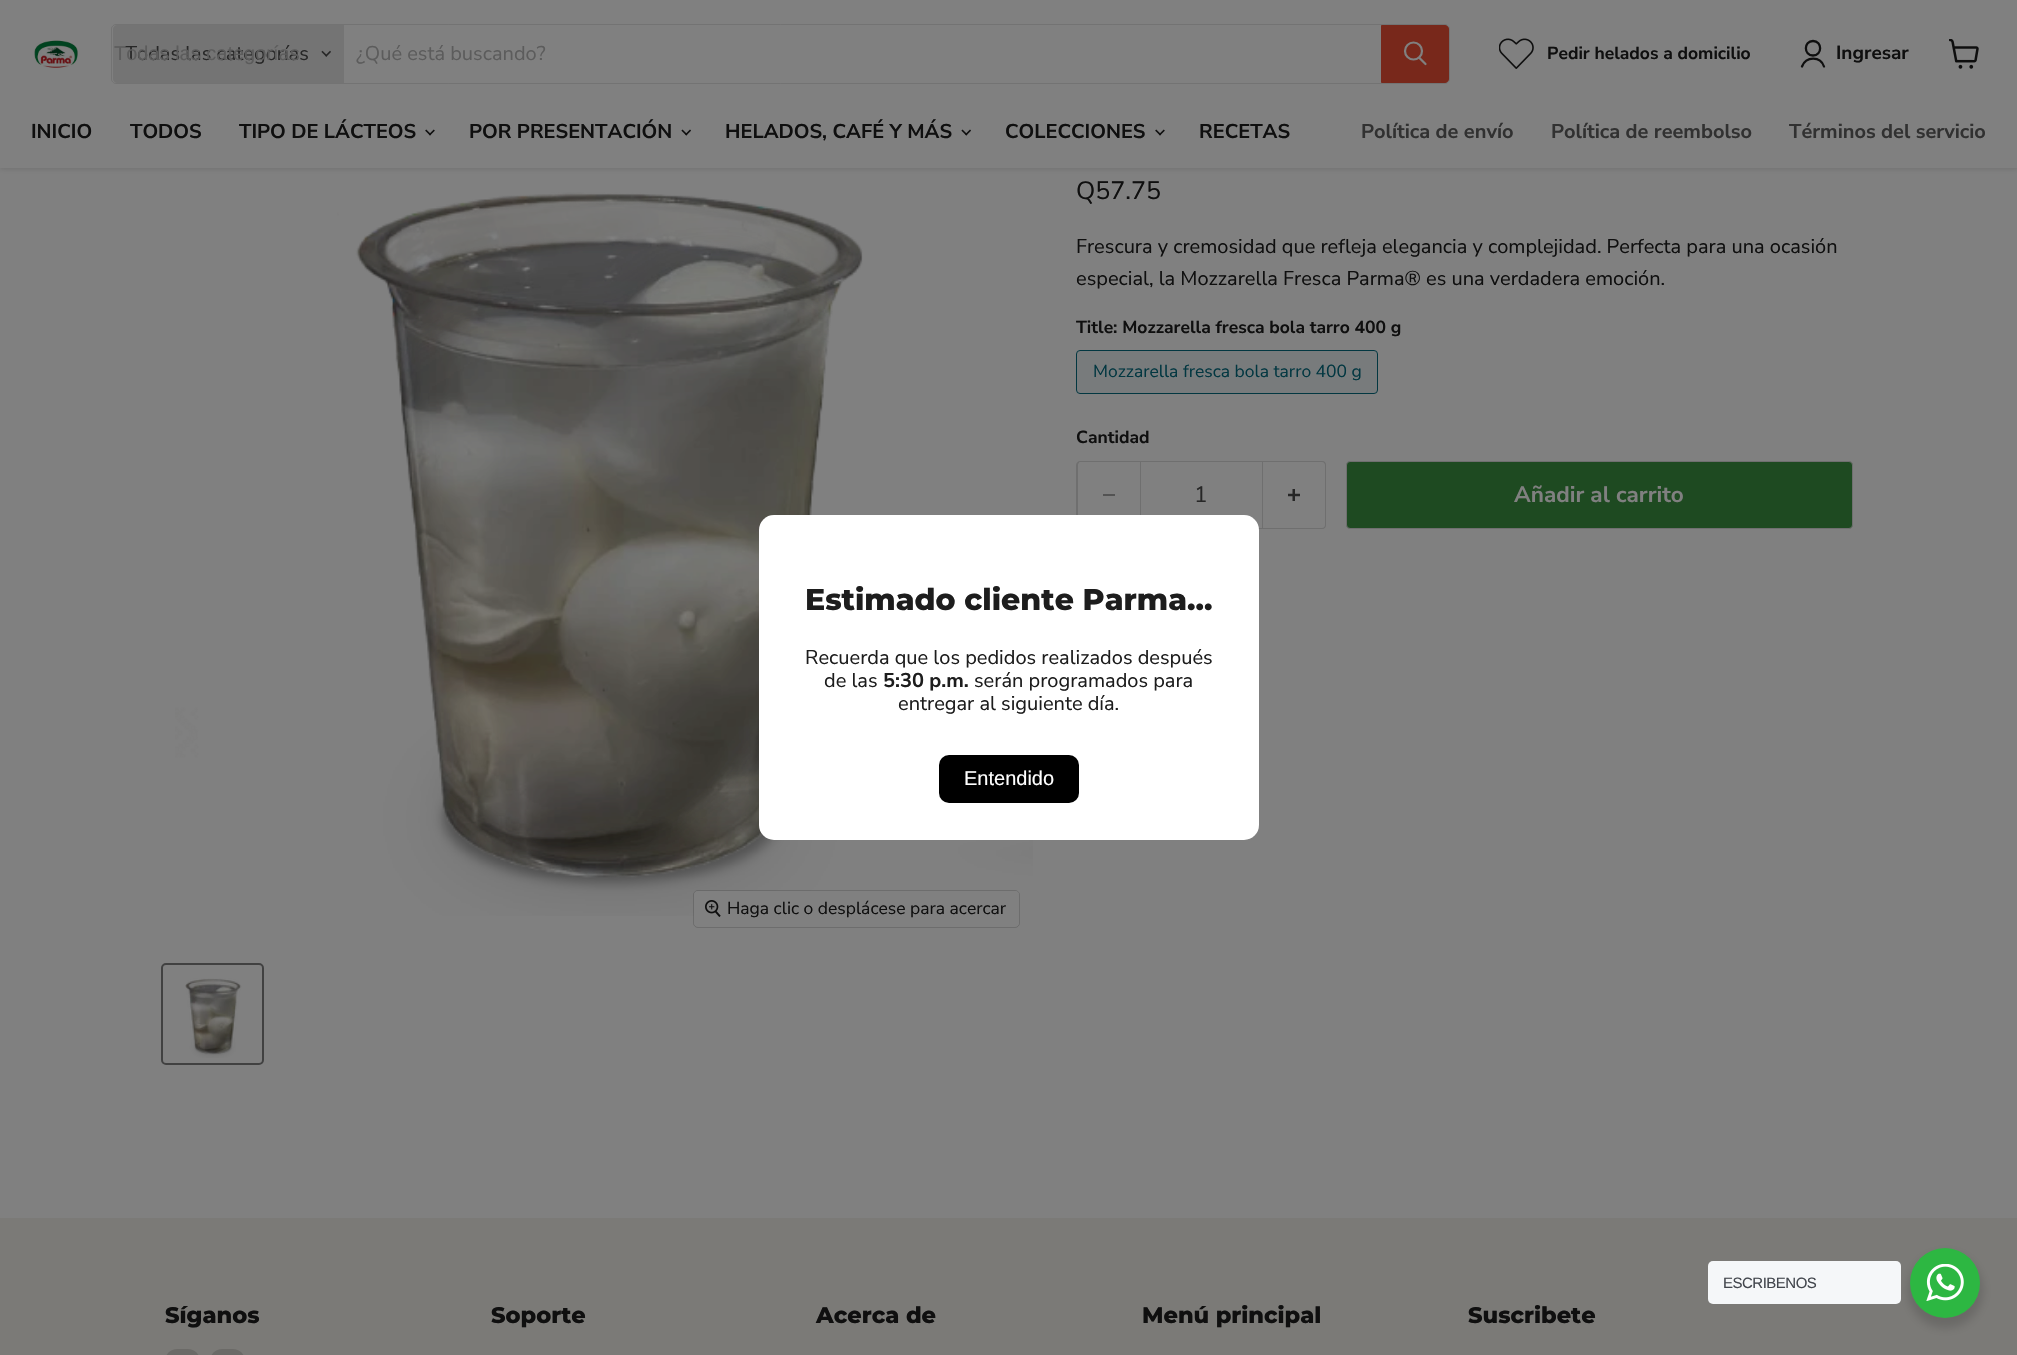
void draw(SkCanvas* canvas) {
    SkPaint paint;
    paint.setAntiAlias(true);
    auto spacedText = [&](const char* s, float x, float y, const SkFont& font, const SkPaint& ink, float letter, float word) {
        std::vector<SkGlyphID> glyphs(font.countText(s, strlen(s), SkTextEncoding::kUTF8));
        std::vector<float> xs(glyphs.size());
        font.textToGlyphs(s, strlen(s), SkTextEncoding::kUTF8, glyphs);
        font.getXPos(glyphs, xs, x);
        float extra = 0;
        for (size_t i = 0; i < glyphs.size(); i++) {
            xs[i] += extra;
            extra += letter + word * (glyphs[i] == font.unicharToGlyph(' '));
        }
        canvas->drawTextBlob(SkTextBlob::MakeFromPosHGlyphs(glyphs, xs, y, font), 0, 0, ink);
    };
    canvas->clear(0xFF808080);
    paint.setColor(0x40404040);
    paint.setMaskFilter(SkMaskFilter::MakeBlur(kNormal_SkBlurStyle, 2.5f));
    canvas->drawRect(SkRect::MakeXYWH(0, 1, 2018, 168), paint);
    paint.setMaskFilter(nullptr);
    paint.setColor(0xFF808080);
    canvas->drawRect(SkRect::MakeXYWH(0, 0, 2017, 168), paint);
    canvas->drawImageRect(SkImages::DeferredFromEncodedData(SkData::MakeFromFileName("img1.png")), SkRect::MakeXYWH(34, 40, 44, 28), SkSamplingOptions());
    paint.setStyle(SkPaint::kStroke_Style);
    paint.setStrokeWidth(1);
    paint.setColor(0x33404040);
    canvas->drawRoundRect(SkRect::MakeXYWH(111.5f, 24.5f, 1338, 59), 4.5f, 4.5f, paint);
    paint.setStyle(SkPaint::kFill_Style);
    paint.setColor(0xFF747474);
    canvas->drawPath(SkPathBuilder().moveTo(117, 25).lineTo(344, 25).lineTo(344, 83).lineTo(117, 83).cubicTo(115, 83, 113, 81, 113, 79).lineTo(113, 29).cubicTo(113, 27, 115, 25, 117, 25).close().detach(), paint);
    SkFont font1(fontMgr->matchFamilyStyle("Nunito Sans", SkFontStyle::Normal()), 20);
    font1.setSubpixel(true);
    paint.setColor(0xFF272727);
    canvas->drawString("Todas las categorías", 125, 60, font1, paint);
    SkFont font2(fontMgr->matchFamilyStyle("Liberation Sans", SkFontStyle::Normal()), 20);
    font2.setSubpixel(true);
    paint.setColor(0xFF5C5C5C);
    canvas->drawString("Todas las categorías", 114, 60, font2, paint);
    canvas->drawImageRect(SkImages::DeferredFromEncodedData(SkData::MakeFromFileName("img2.png")), SkRect::MakeXYWH(321, 50, 10, 7), SkSamplingOptions());
    canvas->drawString("¿Qué está buscando?", 356, 60, font1, paint);
    paint.setColor(0xFF78281B);
    canvas->drawPath(SkPathBuilder().moveTo(1381.5f, 25.5f).lineTo(1445, 25.5f).cubicTo(1447, 25.5f, 1448.5f, 27, 1448.5f, 29).lineTo(1448.5f, 79).cubicTo(1448.5f, 81, 1447, 82.5f, 1445, 82.5f).lineTo(1381.5f, 82.5f).close().detach(), paint);
    paint.setStyle(SkPaint::kStroke_Style);
    canvas->drawPath(SkPathBuilder().moveTo(1381.5f, 25.5f).lineTo(1445, 25.5f).cubicTo(1447, 25.5f, 1448.5f, 27, 1448.5f, 29).lineTo(1448.5f, 79).cubicTo(1448.5f, 81, 1447, 82.5f, 1445, 82.5f).lineTo(1381.5f, 82.5f).close().detach(), paint);
    paint.setStrokeWidth(2.2f);
    paint.setStrokeCap(SkPaint::kRound_Cap);
    paint.setColor(0xFF808080);
    canvas->drawPath(SkPathBuilder().moveTo(1425.5f, 64).lineTo(1419.5f, 58).detach(), paint);
    paint.setStrokeCap(SkPaint::kButt_Cap);
    canvas->drawCircle(1413.5f, 51, 8.5f, paint);
    canvas->drawImageRect(SkImages::DeferredFromEncodedData(SkData::MakeFromFileName("img3.png")), SkRect::MakeXYWH(1499, 38, 35, 31), SkSamplingOptions());
    SkFont font3(fontMgr->matchFamilyStyle("Nunito Sans", SkFontStyle::Bold()), 17.5f);
    font3.setSubpixel(true);
    paint.setStyle(SkPaint::kFill_Style);
    paint.setColor(0xFF0F0F0F);
    canvas->drawString("Pedir helados a domicilio", 1547, 59, font3, paint);
    paint.setStyle(SkPaint::kStroke_Style);
    paint.setStrokeWidth(2.3f);
    paint.setStrokeCap(SkPaint::kRound_Cap);
    paint.setStrokeJoin(SkPaint::kRound_Join);
    canvas->drawPath(SkPathBuilder().moveTo(1813, 55.5f).cubicTo(1822.5f, 55.5f, 1822.5f, 41, 1813, 41).cubicTo(1803.5f, 41, 1803.5f, 55.5f, 1813, 55.5f).close().moveTo(1824, 66.5f).cubicTo(1820.5f, 56, 1806, 56, 1802, 66.5f).detach(), paint);
    SkFont font4(fontMgr->matchFamilyStyle("Nunito Sans", SkFontStyle::Bold()), 19);
    font4.setSubpixel(true);
    paint.setStyle(SkPaint::kFill_Style);
    canvas->drawString("Ingresar", 1836, 59, font4, paint);
    canvas->drawImageRect(SkImages::DeferredFromEncodedData(SkData::MakeFromFileName("img4.png")), SkRect::MakeXYWH(1949, 39, 30, 30), SkSamplingOptions());
    SkFont font5(fontMgr->matchFamilyStyle("Nunito Sans", SkFontStyle::Bold()), 20);
    font5.setSubpixel(true);
    canvas->drawString("INICIO", 31, 138, font5, paint);
    canvas->drawString("TODOS", 130, 138, font5, paint);
    canvas->drawString("TIPO DE LÁCTEOS", 239, 138, font5, paint);
    canvas->drawImageRect(SkImages::DeferredFromEncodedData(SkData::MakeFromFileName("img5.png")), SkRect::MakeXYWH(425, 129, 10, 7), SkSamplingOptions());
    canvas->drawString("POR PRESENTACIÓN", 469, 138, font5, paint);
    canvas->drawImageRect(SkImages::DeferredFromEncodedData(SkData::MakeFromFileName("img6.png")), SkRect::MakeXYWH(681, 129, 10, 7), SkSamplingOptions());
    canvas->drawString("HELADOS, CAFÉ Y MÁS", 725, 138, font5, paint);
    canvas->drawImageRect(SkImages::DeferredFromEncodedData(SkData::MakeFromFileName("img6.png")), SkRect::MakeXYWH(961, 129, 10, 7), SkSamplingOptions());
    canvas->drawString("COLECCIONES", 1005, 138, font5, paint);
    canvas->drawImageRect(SkImages::DeferredFromEncodedData(SkData::MakeFromFileName("img5.png")), SkRect::MakeXYWH(1155, 129, 10, 7), SkSamplingOptions());
    canvas->drawString("RECETAS", 1199, 138, font5, paint);
    paint.setColor(0xFF313131);
    canvas->drawString("Política de envío", 1361, 138, font5, paint);
    canvas->drawString("Política de reembolso", 1551, 138, font5, paint);
    canvas->drawString("Términos del servicio", 1789, 138, font5, paint);
    SkFont font6(fontMgr->matchFamilyStyle("Nunito Sans", SkFontStyle::Normal()), 25);
    font6.setSubpixel(true);
    paint.setColor(0xFF0F0F0F);
    canvas->drawString("Q57.75", 1076, 199, font6, paint);
    canvas->drawString("Frescura y cremosidad que refleja elegancia y complejidad. Perfecta para una ocasión", 1076, 253, font1, paint);
    canvas->drawString("especial, la Mozzarella Fresca Parma® es una verdadera emoción.", 1076, 285, font1, paint);
    canvas->drawString("Title: Mozzarella fresca bola tarro 400 g", 1076, 333, font3, paint);
    paint.setColor(0xFF787B7C);
    canvas->drawRoundRect(SkRect::MakeXYWH(1076.5f, 350.5f, 301, 43), 3.5f, 3.5f, paint);
    paint.setStyle(SkPaint::kStroke_Style);
    paint.setStrokeWidth(1);
    paint.setStrokeCap(SkPaint::kButt_Cap);
    paint.setStrokeJoin(SkPaint::kMiter_Join);
    paint.setColor(0xFF023741);
    canvas->drawRoundRect(SkRect::MakeXYWH(1076.5f, 350.5f, 301, 43), 3.5f, 3.5f, paint);
    SkFont font7(fontMgr->matchFamilyStyle("Nunito Sans", SkFontStyle::Normal()), 17.5f);
    font7.setSubpixel(true);
    paint.setStyle(SkPaint::kFill_Style);
    canvas->drawString("Mozzarella fresca bola tarro 400 g", 1093, 377, font7, paint);
    paint.setColor(0xFF0F0F0F);
    canvas->drawString("Cantidad", 1076, 443, font3, paint);
    paint.setColor(0xFF6F6F6F);
    canvas->drawPath(SkPathBuilder(SkPathFillType::kEvenOdd).moveTo(1080, 461).lineTo(1140, 461).lineTo(1140, 529).lineTo(1080, 529).cubicTo(1078, 529, 1076, 527, 1076, 525).lineTo(1076, 465).cubicTo(1076, 463, 1078, 461, 1080, 461).close().moveTo(1080, 462).lineTo(1140, 462).lineTo(1140, 528).lineTo(1080, 528).cubicTo(1079, 528, 1078, 526, 1078, 525).lineTo(1078, 465).cubicTo(1078, 464, 1079, 462, 1080, 462).close().detach(), paint);
    paint.setColor(0xFF535353);
    canvas->drawRect(SkRect::MakeXYWH(1103, 494, 12, 2), paint);
    paint.setStyle(SkPaint::kStroke_Style);
    paint.setColor(0xFF6F6F6F);
    canvas->drawRect(SkRect::MakeXYWH(1140.5f, 461.5f, 122, 67), paint);
    SkFont font8(fontMgr->matchFamilyStyle("Nunito Sans", SkFontStyle::Normal()), 22.5f);
    font8.setSubpixel(true);
    paint.setStyle(SkPaint::kFill_Style);
    paint.setColor(0xFF272727);
    canvas->drawString("1", 1194, 502, font8, paint);
    paint.setColor(0xFF6F6F6F);
    canvas->drawPath(SkPathBuilder(SkPathFillType::kEvenOdd).moveTo(1262, 461).lineTo(1322, 461).cubicTo(1325, 461, 1326, 463, 1326, 465).lineTo(1326, 525).cubicTo(1326, 527, 1325, 529, 1322, 529).lineTo(1262, 529).close().moveTo(1262, 462).lineTo(1322, 462).cubicTo(1324, 462, 1325, 464, 1325, 465).lineTo(1325, 525).cubicTo(1325, 526, 1324, 528, 1322, 528).lineTo(1262, 528).close().detach(), paint);
    canvas->drawImageRect(SkImages::DeferredFromEncodedData(SkData::MakeFromFileName("img7.png")), SkRect::MakeXYWH(1288, 489, 12, 12), SkSamplingOptions());
    paint.setColor(0xFF1E4A21);
    canvas->drawRoundRect(SkRect::MakeXYWH(1346.5f, 461.5f, 506, 67), 3.5f, 3.5f, paint);
    paint.setStyle(SkPaint::kStroke_Style);
    paint.setColor(0xFF6F6F6F);
    canvas->drawRoundRect(SkRect::MakeXYWH(1346.5f, 461.5f, 506, 67), 3.5f, 3.5f, paint);
    SkFont font9(fontMgr->matchFamilyStyle("Nunito Sans", SkFontStyle::Bold()), 22.5f);
    font9.setSubpixel(true);
    paint.setStyle(SkPaint::kFill_Style);
    paint.setColor(0xFF808080);
    canvas->drawString("Añadir al carrito", 1514, 502, font9, paint);
    canvas->drawImageRect(SkImages::DeferredFromEncodedData(SkData::MakeFromFileName("img8.png")), SkRect::MakeXYWH(175, 192, 858, 724), SkSamplingOptions());
    paint.setStyle(SkPaint::kStroke_Style);
    paint.setColor(0x26000000);
    canvas->drawRoundRect(SkRect::MakeXYWH(693.5f, 890.5f, 326, 37), 4.5f, 4.5f, paint);
    paint.setStyle(SkPaint::kFill_Style);
    paint.setColor(0xE6808080);
    canvas->drawRoundRect(SkRect::MakeXYWH(694, 891, 325, 35), 4, 4, paint);
    canvas->drawImageRect(SkImages::DeferredFromEncodedData(SkData::MakeFromFileName("img9.png")), SkRect::MakeXYWH(705, 900, 16, 17), SkSamplingOptions());
    paint.setColor(0xFF0F0F0F);
    canvas->drawString("Haga clic o desplácese para acercar", 727, 914, font7, paint);
    paint.setStyle(SkPaint::kStroke_Style);
    paint.setStrokeWidth(2);
    paint.setColor(0xFF414141);
    canvas->drawRoundRect(SkRect::MakeXYWH(162, 964, 101, 100), 4, 4, paint);
    canvas->drawImageRect(SkImages::DeferredFromEncodedData(SkData::MakeFromFileName("img10.png")), SkRect::MakeXYWH(185, 978, 57, 80), SkSamplingOptions());
    paint.setStyle(SkPaint::kFill_Style);
    paint.setColor(0xFFFFFFFF);
    canvas->drawRoundRect(SkRect::MakeXYWH(759, 515, 500, 325), 15, 15, paint);
    SkFont font10(fontMgr->matchFamilyStyle("Montserrat", SkFontStyle(800, SkFontStyle::kNormal_Width, SkFontStyle::kUpright_Slant)), 30);
    font10.setSubpixel(true);
    paint.setColor(0xFF1D1D1D);
    canvas->drawString("Estimado cliente Parma...", 805, 610, font10, paint);
    canvas->drawString("Recuerda que los pedidos realizados después", 805, 664, font1, paint);
    canvas->drawString("de las", 824, 687, font1, paint);
    canvas->drawString("5:30 p.m.", 883, 687, font5, paint);
    canvas->drawString("serán programados para", 974, 687, font1, paint);
    canvas->drawString("entregar al siguiente día.", 898, 710, font1, paint);
    paint.setColor(0xFF000000);
    canvas->drawRoundRect(SkRect::MakeXYWH(939, 755, 140, 48), 10, 10, paint);
    paint.setColor(0xFFFFFFFF);
    canvas->drawString("Entendido", 964, 785, font2, paint);
    paint.setColor(0xFF7B7A77);
    canvas->drawRect(SkRect::MakeXYWH(0, 1218, 2017, 137), paint);
    paint.setColor(0x24000000);
    paint.setMaskFilter(SkMaskFilter::MakeBlur(kNormal_SkBlurStyle, 5));
    canvas->drawRoundRect(SkRect::MakeXYWH(1908, 1253, 75, 75), 37.5f, 37.5f, paint);
    paint.setMaskFilter(nullptr);
    paint.setColor(0xFFF5F7F9);
    canvas->drawRoundRect(SkRect::MakeXYWH(1708, 1261, 193, 43), 5, 5, paint);
    SkFont font11(fontMgr->matchFamilyStyle("Liberation Sans", SkFontStyle::Normal()), 15);
    font11.setSubpixel(true);
    paint.setColor(0xFF43474E);
    spacedText("ESCRIBENOS", 1723, 1288, font11, paint, -0.5f, 0);
    paint.setColor(0xFF2DB742);
    canvas->drawCircle(1945, 1283, 35, paint);
    canvas->drawImageRect(SkImages::DeferredFromEncodedData(SkData::MakeFromFileName("img11.png")), SkRect::MakeXYWH(1926, 1264, 38, 37), SkSamplingOptions());
    SkFont font12(fontMgr->matchFamilyStyle("Montserrat", SkFontStyle(800, SkFontStyle::kNormal_Width, SkFontStyle::kUpright_Slant)), 22.5f);
    font12.setSubpixel(true);
    paint.setColor(0xFF0F0F0F);
    canvas->drawString("Síganos", 165, 1323, font12, paint);
    paint.setColor(0xFF6B6A67);
    canvas->drawRoundRect(SkRect::MakeXYWH(165, 1349, 35, 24), 17.5f, 17.5f, paint);
    canvas->drawRoundRect(SkRect::MakeXYWH(210, 1349, 35, 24), 17.5f, 17.5f, paint);
    paint.setColor(0xFF0F0F0F);
    canvas->drawString("Soporte", 491, 1323, font12, paint);
    canvas->drawString("Acerca de", 816, 1323, font12, paint);
    canvas->drawString("Menú principal", 1142, 1323, font12, paint);
    canvas->drawString("Suscribete", 1468, 1323, font12, paint);
}
